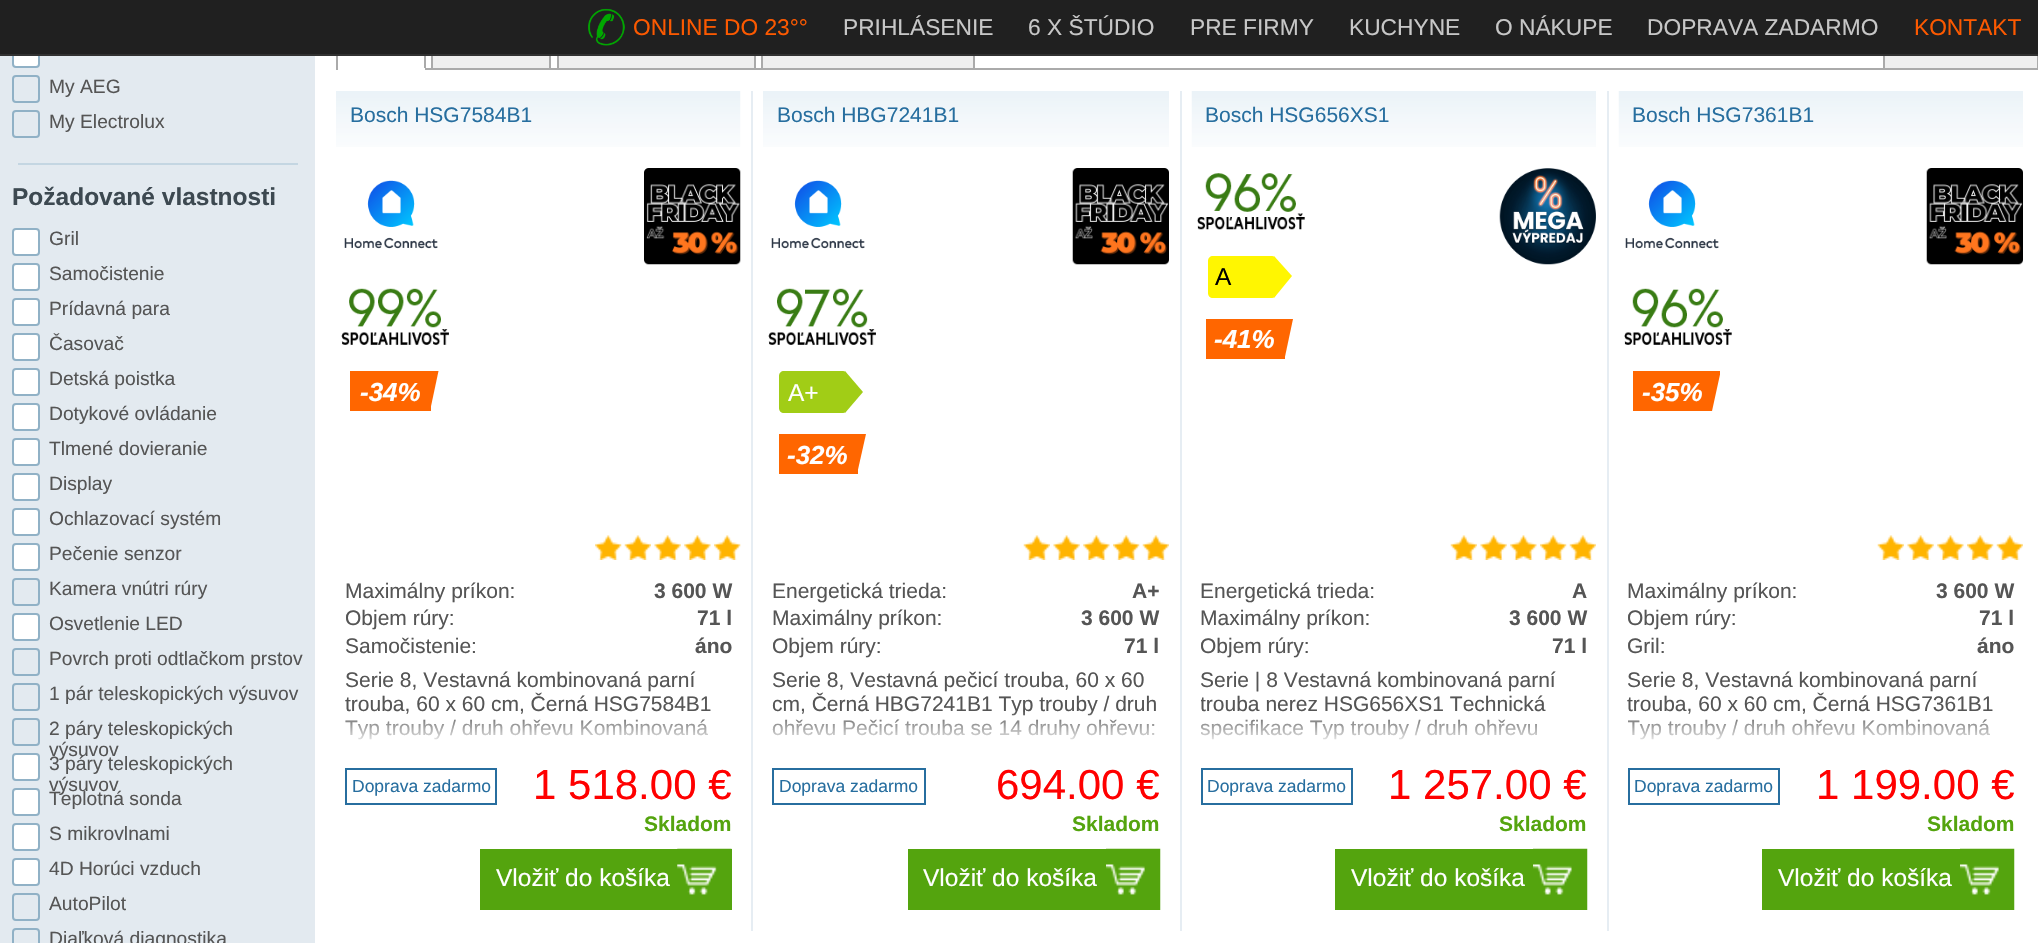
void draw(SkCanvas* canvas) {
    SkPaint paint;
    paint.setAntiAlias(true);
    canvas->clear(0xFFFFFFFF);
    paint.setColor(0xFFE3EAF0);
    canvas->drawRect(SkRect::MakeXYWH(0, 56, 315, 887), paint);
    paint.setColor(0xFFFFFFFF);
    canvas->drawRoundRect(SkRect::MakeXYWH(13, 41, 26, 26), 3, 3, paint);
    paint.setStyle(SkPaint::kStroke_Style);
    paint.setStrokeWidth(2);
    paint.setColor(0xFF90B1C6);
    canvas->drawRoundRect(SkRect::MakeXYWH(13, 41, 26, 26), 3, 3, paint);
    paint.setStyle(SkPaint::kFill_Style);
    paint.setColor(0xFFAAAAAA);
    canvas->drawRect(SkRect::MakeXYWH(426, 68, 1457, 2), paint);
    paint.setColor(0xFFEFEFEF);
    canvas->drawRect(SkRect::MakeXYWH(433, 56, 116, 12), paint);
    paint.setStyle(SkPaint::kStroke_Style);
    paint.setColor(0xFFAAAAAA);
    canvas->drawRect(SkRect::MakeXYWH(432, 1, 118, 68), paint);
    paint.setStyle(SkPaint::kFill_Style);
    paint.setColor(0xFFEFEFEF);
    canvas->drawRect(SkRect::MakeXYWH(559, 56, 195, 12), paint);
    paint.setStyle(SkPaint::kStroke_Style);
    paint.setColor(0xFFAAAAAA);
    canvas->drawRect(SkRect::MakeXYWH(558, 1, 197, 68), paint);
    paint.setStyle(SkPaint::kFill_Style);
    paint.setColor(0xFFEFEFEF);
    canvas->drawRect(SkRect::MakeXYWH(763, 56, 210, 12), paint);
    paint.setStyle(SkPaint::kStroke_Style);
    paint.setColor(0xFFAAAAAA);
    canvas->drawRect(SkRect::MakeXYWH(762, 1, 212, 68), paint);
    paint.setStyle(SkPaint::kFill_Style);
    paint.setColor(0xFFEFEFEF);
    canvas->drawRect(SkRect::MakeXYWH(1885, 56, 152, 12), paint);
    paint.setStyle(SkPaint::kStroke_Style);
    paint.setColor(0xFFAAAAAA);
    canvas->drawRect(SkRect::MakeXYWH(1884, 1, 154, 68), paint);
    paint.setStyle(SkPaint::kFill_Style);
    paint.setColor(0xFF202020);
    canvas->drawRect(SkRect::MakeXYWH(0, 0, 2038, 54), paint);
    paint.setColor(0xFF313131);
    canvas->drawRect(SkRect::MakeXYWH(0, 54, 2038, 2), paint);
    canvas->drawImageRect(SkImages::DeferredFromEncodedData(SkData::MakeFromFileName("img1.png")), SkRect::MakeXYWH(588, 8, 37, 38), SkSamplingOptions());
    SkFont font1(fontMgr->matchFamilyStyle("Liberation Sans", SkFontStyle::Normal()), 22.75f);
    font1.setSubpixel(true);
    paint.setColor(0xFFFC5900);
    canvas->drawString("ONLINE DO 23°°", 633, 35, font1, paint);
    paint.setColor(0xFFC7C7C7);
    canvas->drawString("PRIHLÁSENIE", 843, 35, font1, paint);
    canvas->drawString("6 X ŠTÚDIO", 1028, 35, font1, paint);
    canvas->drawString("PRE FIRMY", 1190, 35, font1, paint);
    canvas->drawString("KUCHYNE", 1349, 35, font1, paint);
    canvas->drawString("O NÁKUPE", 1495, 35, font1, paint);
    canvas->drawString("DOPRAVA ZADARMO", 1647, 35, font1, paint);
    paint.setColor(0xFFFC5900);
    canvas->drawString("KONTAKT", 1914, 35, font1, paint);
    paint.setStyle(SkPaint::kStroke_Style);
    paint.setColor(0xFF90B1C6);
    canvas->drawRoundRect(SkRect::MakeXYWH(13, 76, 26, 26), 3, 3, paint);
    SkFont font2(fontMgr->matchFamilyStyle("Liberation Sans", SkFontStyle::Normal()), 19.25f);
    font2.setSubpixel(true);
    paint.setStyle(SkPaint::kFill_Style);
    paint.setColor(0xFF555555);
    canvas->drawString("My AEG", 49, 93, font2, paint);
    paint.setStyle(SkPaint::kStroke_Style);
    paint.setColor(0xFF90B1C6);
    canvas->drawRoundRect(SkRect::MakeXYWH(13, 111, 26, 26), 3, 3, paint);
    paint.setStyle(SkPaint::kFill_Style);
    paint.setColor(0xFF555555);
    canvas->drawString("My Electrolux", 49, 128, font2, paint);
    paint.setColor(0xFFC4D6E2);
    canvas->drawRect(SkRect::MakeXYWH(18, 163, 280, 2), paint);
    SkFont font3(fontMgr->matchFamilyStyle("Liberation Sans", SkFontStyle::Bold()), 24.5f);
    font3.setSubpixel(true);
    paint.setColor(0xFF3D4951);
    canvas->drawString("Požadované vlastnosti", 12, 205, font3, paint);
    paint.setColor(0xFFFFFFFF);
    canvas->drawRoundRect(SkRect::MakeXYWH(13, 229, 26, 26), 3, 3, paint);
    paint.setStyle(SkPaint::kStroke_Style);
    paint.setColor(0xFF90B1C6);
    canvas->drawRoundRect(SkRect::MakeXYWH(13, 229, 26, 26), 3, 3, paint);
    paint.setStyle(SkPaint::kFill_Style);
    paint.setColor(0xFF555555);
    canvas->drawString("Gril", 49, 245, font2, paint);
    paint.setColor(0xFFFFFFFF);
    canvas->drawRoundRect(SkRect::MakeXYWH(13, 264, 26, 26), 3, 3, paint);
    paint.setStyle(SkPaint::kStroke_Style);
    paint.setColor(0xFF90B1C6);
    canvas->drawRoundRect(SkRect::MakeXYWH(13, 264, 26, 26), 3, 3, paint);
    paint.setStyle(SkPaint::kFill_Style);
    paint.setColor(0xFF555555);
    canvas->drawString("Samočistenie", 49, 280, font2, paint);
    paint.setColor(0xFFFFFFFF);
    canvas->drawRoundRect(SkRect::MakeXYWH(13, 299, 26, 26), 3, 3, paint);
    paint.setStyle(SkPaint::kStroke_Style);
    paint.setColor(0xFF90B1C6);
    canvas->drawRoundRect(SkRect::MakeXYWH(13, 299, 26, 26), 3, 3, paint);
    paint.setStyle(SkPaint::kFill_Style);
    paint.setColor(0xFF555555);
    canvas->drawString("Prídavná para", 49, 315, font2, paint);
    paint.setColor(0xFFFFFFFF);
    canvas->drawRoundRect(SkRect::MakeXYWH(13, 334, 26, 26), 3, 3, paint);
    paint.setStyle(SkPaint::kStroke_Style);
    paint.setColor(0xFF90B1C6);
    canvas->drawRoundRect(SkRect::MakeXYWH(13, 334, 26, 26), 3, 3, paint);
    paint.setStyle(SkPaint::kFill_Style);
    paint.setColor(0xFF555555);
    canvas->drawString("Časovač", 49, 350, font2, paint);
    paint.setColor(0xFFFFFFFF);
    canvas->drawRoundRect(SkRect::MakeXYWH(13, 369, 26, 26), 3, 3, paint);
    paint.setStyle(SkPaint::kStroke_Style);
    paint.setColor(0xFF90B1C6);
    canvas->drawRoundRect(SkRect::MakeXYWH(13, 369, 26, 26), 3, 3, paint);
    paint.setStyle(SkPaint::kFill_Style);
    paint.setColor(0xFF555555);
    canvas->drawString("Detská poistka", 49, 385, font2, paint);
    paint.setColor(0xFFFFFFFF);
    canvas->drawRoundRect(SkRect::MakeXYWH(13, 404, 26, 26), 3, 3, paint);
    paint.setStyle(SkPaint::kStroke_Style);
    paint.setColor(0xFF90B1C6);
    canvas->drawRoundRect(SkRect::MakeXYWH(13, 404, 26, 26), 3, 3, paint);
    paint.setStyle(SkPaint::kFill_Style);
    paint.setColor(0xFF555555);
    canvas->drawString("Dotykové ovládanie", 49, 420, font2, paint);
    paint.setColor(0xFFFFFFFF);
    canvas->drawRoundRect(SkRect::MakeXYWH(13, 439, 26, 26), 3, 3, paint);
    paint.setStyle(SkPaint::kStroke_Style);
    paint.setColor(0xFF90B1C6);
    canvas->drawRoundRect(SkRect::MakeXYWH(13, 439, 26, 26), 3, 3, paint);
    paint.setStyle(SkPaint::kFill_Style);
    paint.setColor(0xFF555555);
    canvas->drawString("Tlmené dovieranie", 49, 455, font2, paint);
    paint.setColor(0xFFFFFFFF);
    canvas->drawRoundRect(SkRect::MakeXYWH(13, 474, 26, 26), 3, 3, paint);
    paint.setStyle(SkPaint::kStroke_Style);
    paint.setColor(0xFF90B1C6);
    canvas->drawRoundRect(SkRect::MakeXYWH(13, 474, 26, 26), 3, 3, paint);
    paint.setStyle(SkPaint::kFill_Style);
    paint.setColor(0xFF555555);
    canvas->drawString("Display", 49, 490, font2, paint);
    paint.setColor(0xFFFFFFFF);
    canvas->drawRoundRect(SkRect::MakeXYWH(13, 509, 26, 26), 3, 3, paint);
    paint.setStyle(SkPaint::kStroke_Style);
    paint.setColor(0xFF90B1C6);
    canvas->drawRoundRect(SkRect::MakeXYWH(13, 509, 26, 26), 3, 3, paint);
    paint.setStyle(SkPaint::kFill_Style);
    paint.setColor(0xFF555555);
    canvas->drawString("Ochlazovací systém", 49, 525, font2, paint);
    paint.setColor(0xFFFFFFFF);
    canvas->drawRoundRect(SkRect::MakeXYWH(13, 544, 26, 26), 3, 3, paint);
    paint.setStyle(SkPaint::kStroke_Style);
    paint.setColor(0xFF90B1C6);
    canvas->drawRoundRect(SkRect::MakeXYWH(13, 544, 26, 26), 3, 3, paint);
    paint.setStyle(SkPaint::kFill_Style);
    paint.setColor(0xFF555555);
    canvas->drawString("Pečenie senzor", 49, 560, font2, paint);
    paint.setStyle(SkPaint::kStroke_Style);
    paint.setColor(0xFF90B1C6);
    canvas->drawRoundRect(SkRect::MakeXYWH(13, 579, 26, 26), 3, 3, paint);
    paint.setStyle(SkPaint::kFill_Style);
    paint.setColor(0xFF555555);
    canvas->drawString("Kamera vnútri rúry", 49, 595, font2, paint);
    paint.setColor(0xFFFFFFFF);
    canvas->drawRoundRect(SkRect::MakeXYWH(13, 614, 26, 26), 3, 3, paint);
    paint.setStyle(SkPaint::kStroke_Style);
    paint.setColor(0xFF90B1C6);
    canvas->drawRoundRect(SkRect::MakeXYWH(13, 614, 26, 26), 3, 3, paint);
    paint.setStyle(SkPaint::kFill_Style);
    paint.setColor(0xFF555555);
    canvas->drawString("Osvetlenie LED", 49, 630, font2, paint);
    paint.setStyle(SkPaint::kStroke_Style);
    paint.setColor(0xFF90B1C6);
    canvas->drawRoundRect(SkRect::MakeXYWH(13, 649, 26, 26), 3, 3, paint);
    paint.setStyle(SkPaint::kFill_Style);
    paint.setColor(0xFF555555);
    canvas->drawString("Povrch proti odtlačkom prstov", 49, 665, font2, paint);
    paint.setStyle(SkPaint::kStroke_Style);
    paint.setColor(0xFF90B1C6);
    canvas->drawRoundRect(SkRect::MakeXYWH(13, 684, 26, 26), 3, 3, paint);
    paint.setStyle(SkPaint::kFill_Style);
    paint.setColor(0xFF555555);
    canvas->drawString("1 pár teleskopických výsuvov", 49, 700, font2, paint);
    paint.setStyle(SkPaint::kStroke_Style);
    paint.setColor(0xFF90B1C6);
    canvas->drawRoundRect(SkRect::MakeXYWH(13, 719, 26, 26), 3, 3, paint);
    paint.setStyle(SkPaint::kFill_Style);
    paint.setColor(0xFF555555);
    canvas->drawString("2 páry teleskopických", 49, 735, font2, paint);
    canvas->drawString("výsuvov", 49, 756, font2, paint);
    paint.setColor(0xFFFFFFFF);
    canvas->drawRoundRect(SkRect::MakeXYWH(13, 754, 26, 26), 3, 3, paint);
    paint.setStyle(SkPaint::kStroke_Style);
    paint.setColor(0xFF90B1C6);
    canvas->drawRoundRect(SkRect::MakeXYWH(13, 754, 26, 26), 3, 3, paint);
    paint.setStyle(SkPaint::kFill_Style);
    paint.setColor(0xFF555555);
    canvas->drawString("3 páry teleskopických", 49, 770, font2, paint);
    canvas->drawString("výsuvov", 49, 791, font2, paint);
    paint.setColor(0xFFFFFFFF);
    canvas->drawRoundRect(SkRect::MakeXYWH(13, 789, 26, 26), 3, 3, paint);
    paint.setStyle(SkPaint::kStroke_Style);
    paint.setColor(0xFF90B1C6);
    canvas->drawRoundRect(SkRect::MakeXYWH(13, 789, 26, 26), 3, 3, paint);
    paint.setStyle(SkPaint::kFill_Style);
    paint.setColor(0xFF555555);
    canvas->drawString("Teplotná sonda", 49, 805, font2, paint);
    paint.setColor(0xFFFFFFFF);
    canvas->drawRoundRect(SkRect::MakeXYWH(13, 824, 26, 26), 3, 3, paint);
    paint.setStyle(SkPaint::kStroke_Style);
    paint.setColor(0xFF90B1C6);
    canvas->drawRoundRect(SkRect::MakeXYWH(13, 824, 26, 26), 3, 3, paint);
    paint.setStyle(SkPaint::kFill_Style);
    paint.setColor(0xFF555555);
    canvas->drawString("S mikrovlnami", 49, 840, font2, paint);
    paint.setColor(0xFFFFFFFF);
    canvas->drawRoundRect(SkRect::MakeXYWH(13, 859, 26, 26), 3, 3, paint);
    paint.setStyle(SkPaint::kStroke_Style);
    paint.setColor(0xFF90B1C6);
    canvas->drawRoundRect(SkRect::MakeXYWH(13, 859, 26, 26), 3, 3, paint);
    paint.setStyle(SkPaint::kFill_Style);
    paint.setColor(0xFF555555);
    canvas->drawString("4D Horúci vzduch", 49, 875, font2, paint);
    paint.setStyle(SkPaint::kStroke_Style);
    paint.setColor(0xFF90B1C6);
    canvas->drawRoundRect(SkRect::MakeXYWH(13, 894, 26, 26), 3, 3, paint);
    paint.setStyle(SkPaint::kFill_Style);
    paint.setColor(0xFF555555);
    canvas->drawString("AutoPilot", 49, 910, font2, paint);
    paint.setStyle(SkPaint::kStroke_Style);
    paint.setColor(0xFF90B1C6);
    canvas->drawRoundRect(SkRect::MakeXYWH(13, 929, 26, 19), 3, 3, paint);
    paint.setStyle(SkPaint::kFill_Style);
    paint.setColor(0xFF555555);
    canvas->drawString("Diaľková diagnostika", 49, 945, font2, paint);
    paint.setColor(0xFFAAAAAA);
    canvas->drawRect(SkRect::MakeXYWH(424, 56, 2, 14), paint);
    paint.setColor(0xFFFFFFFF);
    canvas->drawRect(SkRect::MakeXYWH(424, 68, 1, 2), paint);
    paint.setColor(0xFFAAAAAA);
    canvas->drawRect(SkRect::MakeXYWH(336, 56, 2, 14), paint);
    paint.setColor(0xFFE6EDF3);
    canvas->drawRect(SkRect::MakeXYWH(751, 91, 2, 840), paint);
    canvas->drawImageRect(SkImages::DeferredFromEncodedData(SkData::MakeFromFileName("img2.png")), SkRect::MakeXYWH(336, 91, 405, 56), SkSamplingOptions());
    SkFont font4(fontMgr->matchFamilyStyle("Liberation Sans", SkFontStyle::Normal()), 21);
    font4.setSubpixel(true);
    paint.setColor(0xFF276E9F);
    canvas->drawString("Bosch HSG7584B1", 350, 122, font4, paint);
    canvas->drawImageRect(SkImages::DeferredFromEncodedData(SkData::MakeFromFileName("img3.png")), SkRect::MakeXYWH(644, 168, 97, 97), SkSamplingOptions());
    canvas->drawImageRect(SkImages::DeferredFromEncodedData(SkData::MakeFromFileName("img4.png")), SkRect::MakeXYWH(344, 180, 94, 69), SkSamplingOptions());
    canvas->drawImageRect(SkImages::DeferredFromEncodedData(SkData::MakeFromFileName("img5.png")), SkRect::MakeXYWH(341, 288, 108, 57), SkSamplingOptions());
    paint.setColor(0xFFFF6600);
    canvas->drawRect(SkRect::MakeXYWH(350, 371, 81, 40), paint);
    SkFont font5(fontMgr->matchFamilyStyle("Liberation Sans", SkFontStyle::BoldItalic()), 26);
    font5.setSubpixel(true);
    paint.setColor(0xFFFFFFFF);
    canvas->drawString("-34%", 360, 401, font5, paint);
    paint.setColor(0xFFFF6600);
    canvas->drawPath(SkPathBuilder().moveTo(430, 411).lineTo(429, 411).lineTo(429, 371).lineTo(438.5f, 371).close().detach(), paint);
    canvas->drawImageRect(SkImages::DeferredFromEncodedData(SkData::MakeFromFileName("img6.png")), SkRect::MakeXYWH(595, 535, 27, 25), SkSamplingOptions());
    canvas->drawImageRect(SkImages::DeferredFromEncodedData(SkData::MakeFromFileName("img7.png")), SkRect::MakeXYWH(624, 535, 27, 25), SkSamplingOptions());
    canvas->drawImageRect(SkImages::DeferredFromEncodedData(SkData::MakeFromFileName("img8.png")), SkRect::MakeXYWH(654, 535, 27, 25), SkSamplingOptions());
    canvas->drawImageRect(SkImages::DeferredFromEncodedData(SkData::MakeFromFileName("img9.png")), SkRect::MakeXYWH(684, 535, 27, 25), SkSamplingOptions());
    canvas->drawImageRect(SkImages::DeferredFromEncodedData(SkData::MakeFromFileName("img10.png")), SkRect::MakeXYWH(714, 535, 27, 25), SkSamplingOptions());
    paint.setColor(0xFF555555);
    canvas->drawString("Maximálny príkon:", 345, 598, font4, paint);
    SkFont font6(fontMgr->matchFamilyStyle("Liberation Sans", SkFontStyle::Bold()), 21);
    font6.setSubpixel(true);
    canvas->drawString("3 600 W", 654, 598, font6, paint);
    canvas->drawString("Objem rúry:", 345, 625, font4, paint);
    canvas->drawString("71 l", 697, 625, font6, paint);
    canvas->drawString("Samočistenie:", 345, 653, font4, paint);
    canvas->drawString("áno", 695, 653, font6, paint);
    canvas->drawString("Serie 8, Vestavná kombinovaná parní", 345, 687, font4, paint);
    canvas->drawString("trouba, 60 x 60 cm, Černá HSG7584B1", 345, 711, font4, paint);
    canvas->drawString("Typ trouby / druh ohřevu Kombinovaná", 345, 735, font4, paint);
    {
        const SkColor colors[] = {0x00FFFFFF, 0xFFFFFFFF};
        const float stops[] = {0, 1};
        const SkPoint ends[] = {{538, 711}, {538, 746}};
        paint.setShader(SkGradientShader::MakeLinear(ends, colors, stops, 2, SkTileMode::kClamp));
        paint.setAlpha(255);
    }
    canvas->drawRect(SkRect::MakeXYWH(345, 712, 363, 28), paint);
    paint.setStyle(SkPaint::kStroke_Style);
    paint.setShader(nullptr);
    paint.setColor(0xFF276E9F);
    canvas->drawRect(SkRect::MakeXYWH(346, 769, 150, 35), paint);
    SkFont font7(fontMgr->matchFamilyStyle("Liberation Sans", SkFontStyle::Normal()), 17.5f);
    font7.setSubpixel(true);
    paint.setStyle(SkPaint::kFill_Style);
    canvas->drawString("Doprava zadarmo", 352, 792, font7, paint);
    SkFont font8(fontMgr->matchFamilyStyle("Liberation Sans", SkFontStyle::Normal()), 42);
    font8.setSubpixel(true);
    paint.setColor(0xFFFF0000);
    canvas->drawString("1 518.00 €", 533, 799, font8, paint);
    paint.setColor(0xFF54A40E);
    canvas->drawString("Skladom", 644, 831, font6, paint);
    canvas->drawRect(SkRect::MakeXYWH(480, 849, 252, 61), paint);
    canvas->drawImageRect(SkImages::DeferredFromEncodedData(SkData::MakeFromFileName("img11.png")), SkRect::MakeXYWH(677, 848, 55, 47), SkSamplingOptions());
    SkFont font9(fontMgr->matchFamilyStyle("Liberation Sans", SkFontStyle::Normal()), 24.5f);
    font9.setSubpixel(true);
    paint.setColor(0xFFFFFFFF);
    canvas->drawString("Vložiť do košíka", 496, 886, font9, paint);
    paint.setColor(0xFFE6EDF3);
    canvas->drawRect(SkRect::MakeXYWH(1180, 91, 2, 840), paint);
    canvas->drawImageRect(SkImages::DeferredFromEncodedData(SkData::MakeFromFileName("img12.png")), SkRect::MakeXYWH(763, 91, 406, 56), SkSamplingOptions());
    paint.setColor(0xFF276E9F);
    canvas->drawString("Bosch HBG7241B1", 777, 122, font4, paint);
    canvas->drawImageRect(SkImages::DeferredFromEncodedData(SkData::MakeFromFileName("img13.png")), SkRect::MakeXYWH(1072, 168, 97, 97), SkSamplingOptions());
    canvas->drawImageRect(SkImages::DeferredFromEncodedData(SkData::MakeFromFileName("img4.png")), SkRect::MakeXYWH(771, 180, 94, 69), SkSamplingOptions());
    canvas->drawImageRect(SkImages::DeferredFromEncodedData(SkData::MakeFromFileName("img14.png")), SkRect::MakeXYWH(768, 288, 108, 57), SkSamplingOptions());
    paint.setColor(0xFFA1CD16);
    canvas->drawPath(SkPathBuilder().moveTo(784, 371).lineTo(843, 371).cubicTo(845, 371, 847, 373, 847, 375).lineTo(847, 409).cubicTo(847, 411, 845, 413, 843, 413).lineTo(784, 413).cubicTo(781, 413, 779, 411, 779, 408).lineTo(779, 376).cubicTo(779, 373, 781, 371, 784, 371).close().detach(), paint);
    paint.setColor(0xFFFFFFFF);
    canvas->drawString("A+", 788, 401, font9, paint);
    paint.setColor(0xFFA1CD16);
    canvas->drawPath(SkPathBuilder().moveTo(845, 413).lineTo(845, 371).lineTo(863, 392).close().detach(), paint);
    paint.setColor(0xFFFF6600);
    canvas->drawRect(SkRect::MakeXYWH(779, 434, 79, 40), paint);
    paint.setColor(0xFFFFFFFF);
    canvas->drawString("-32%", 787, 464, font5, paint);
    paint.setColor(0xFFFF6600);
    canvas->drawPath(SkPathBuilder().moveTo(857, 474).lineTo(856, 474).lineTo(856, 434).lineTo(866, 434).close().detach(), paint);
    canvas->drawImageRect(SkImages::DeferredFromEncodedData(SkData::MakeFromFileName("img15.png")), SkRect::MakeXYWH(1023, 535, 27, 25), SkSamplingOptions());
    canvas->drawImageRect(SkImages::DeferredFromEncodedData(SkData::MakeFromFileName("img8.png")), SkRect::MakeXYWH(1053, 535, 27, 25), SkSamplingOptions());
    canvas->drawImageRect(SkImages::DeferredFromEncodedData(SkData::MakeFromFileName("img9.png")), SkRect::MakeXYWH(1083, 535, 27, 25), SkSamplingOptions());
    canvas->drawImageRect(SkImages::DeferredFromEncodedData(SkData::MakeFromFileName("img10.png")), SkRect::MakeXYWH(1113, 535, 27, 25), SkSamplingOptions());
    canvas->drawImageRect(SkImages::DeferredFromEncodedData(SkData::MakeFromFileName("img7.png")), SkRect::MakeXYWH(1142, 535, 27, 25), SkSamplingOptions());
    paint.setColor(0xFF555555);
    canvas->drawString("Energetická trieda:", 772, 598, font4, paint);
    canvas->drawString("A+", 1132, 598, font6, paint);
    canvas->drawString("Maximálny príkon:", 772, 625, font4, paint);
    canvas->drawString("3 600 W", 1081, 625, font6, paint);
    canvas->drawString("Objem rúry:", 772, 653, font4, paint);
    canvas->drawString("71 l", 1124, 653, font6, paint);
    canvas->drawString("Serie 8, Vestavná pečicí trouba, 60 x 60", 772, 687, font4, paint);
    canvas->drawString("cm, Černá HBG7241B1 Typ trouby / druh", 772, 711, font4, paint);
    canvas->drawString("ohřevu Pečicí trouba se 14 druhy ohřevu:", 772, 735, font4, paint);
    {
        const SkColor colors[] = {0x00FFFFFF, 0xFFFFFFFF};
        const float stops[] = {0, 1};
        const SkPoint ends[] = {{966, 711}, {966, 746}};
        paint.setShader(SkGradientShader::MakeLinear(ends, colors, stops, 2, SkTileMode::kClamp));
        paint.setAlpha(255);
    }
    canvas->drawRect(SkRect::MakeXYWH(773, 712, 382, 28), paint);
    paint.setStyle(SkPaint::kStroke_Style);
    paint.setShader(nullptr);
    paint.setColor(0xFF276E9F);
    canvas->drawRect(SkRect::MakeXYWH(773, 769, 152, 35), paint);
    paint.setStyle(SkPaint::kFill_Style);
    canvas->drawString("Doprava zadarmo", 779, 792, font7, paint);
    paint.setColor(0xFFFF0000);
    canvas->drawString("694.00 €", 996, 799, font8, paint);
    paint.setColor(0xFF54A40E);
    canvas->drawString("Skladom", 1072, 831, font6, paint);
    canvas->drawRect(SkRect::MakeXYWH(908, 849, 198, 61), paint);
    canvas->drawImageRect(SkImages::DeferredFromEncodedData(SkData::MakeFromFileName("img16.png")), SkRect::MakeXYWH(1106, 848, 55, 62), SkSamplingOptions());
    paint.setColor(0xFFFFFFFF);
    canvas->drawString("Vložiť do košíka", 923, 886, font9, paint);
    paint.setColor(0xFFE6EDF3);
    canvas->drawRect(SkRect::MakeXYWH(1607, 91, 2, 840), paint);
    canvas->drawImageRect(SkImages::DeferredFromEncodedData(SkData::MakeFromFileName("img17.png")), SkRect::MakeXYWH(1191, 91, 405, 56), SkSamplingOptions());
    paint.setColor(0xFF276E9F);
    canvas->drawString("Bosch HSG656XS1", 1205, 122, font4, paint);
    canvas->drawImageRect(SkImages::DeferredFromEncodedData(SkData::MakeFromFileName("img18.png")), SkRect::MakeXYWH(1499, 168, 97, 97), SkSamplingOptions());
    canvas->drawImageRect(SkImages::DeferredFromEncodedData(SkData::MakeFromFileName("img19.png")), SkRect::MakeXYWH(1197, 173, 108, 57), SkSamplingOptions());
    paint.setColor(0xFFFFF601);
    canvas->drawPath(SkPathBuilder().moveTo(1213, 256).lineTo(1272, 256).cubicTo(1274, 256, 1276, 258, 1276, 260).lineTo(1276, 294).cubicTo(1276, 296, 1274, 298, 1272, 298).lineTo(1213, 298).cubicTo(1210, 298, 1208, 296, 1208, 293).lineTo(1208, 261).cubicTo(1208, 258, 1210, 256, 1213, 256).close().detach(), paint);
    paint.setColor(0xFF000000);
    canvas->drawString("A", 1215, 285, font9, paint);
    paint.setColor(0xFFFFF601);
    canvas->drawPath(SkPathBuilder().moveTo(1274, 298).lineTo(1274, 256).lineTo(1292, 276).close().detach(), paint);
    paint.setColor(0xFFFF6600);
    canvas->drawRect(SkRect::MakeXYWH(1206, 319, 79, 40), paint);
    paint.setColor(0xFFFFFFFF);
    canvas->drawString("-41%", 1214, 348, font5, paint);
    paint.setColor(0xFFFF6600);
    canvas->drawPath(SkPathBuilder().moveTo(1283, 319).lineTo(1293, 319).lineTo(1284.5f, 359).lineTo(1283, 359).close().detach(), paint);
    canvas->drawImageRect(SkImages::DeferredFromEncodedData(SkData::MakeFromFileName("img20.png")), SkRect::MakeXYWH(1450, 535, 27, 25), SkSamplingOptions());
    canvas->drawImageRect(SkImages::DeferredFromEncodedData(SkData::MakeFromFileName("img21.png")), SkRect::MakeXYWH(1480, 535, 27, 25), SkSamplingOptions());
    canvas->drawImageRect(SkImages::DeferredFromEncodedData(SkData::MakeFromFileName("img22.png")), SkRect::MakeXYWH(1510, 535, 27, 25), SkSamplingOptions());
    canvas->drawImageRect(SkImages::DeferredFromEncodedData(SkData::MakeFromFileName("img23.png")), SkRect::MakeXYWH(1540, 535, 27, 25), SkSamplingOptions());
    canvas->drawImageRect(SkImages::DeferredFromEncodedData(SkData::MakeFromFileName("img7.png")), SkRect::MakeXYWH(1569, 535, 27, 25), SkSamplingOptions());
    paint.setColor(0xFF555555);
    canvas->drawString("Energetická trieda:", 1200, 598, font4, paint);
    canvas->drawString("A", 1572, 598, font6, paint);
    canvas->drawString("Maximálny príkon:", 1200, 625, font4, paint);
    canvas->drawString("3 600 W", 1509, 625, font6, paint);
    canvas->save();
    canvas->clipRect(SkRect::MakeXYWH(1201, 579, 386, 83));
    canvas->drawString("Objem rúry:", 1200, 653, font4, paint);
    canvas->restore();
    canvas->drawString("71 l", 1552, 653, font6, paint);
    canvas->drawString("Serie | 8 Vestavná kombinovaná parní", 1200, 687, font4, paint);
    canvas->save();
    canvas->clipRect(SkRect::MakeXYWH(1201, 670, 386, 76));
    canvas->drawString("trouba nerez HSG656XS1 Technická", 1200, 711, font4, paint);
    canvas->drawString("specifikace Typ trouby / druh ohřevu", 1200, 735, font4, paint);
    canvas->restore();
    {
        const SkColor colors[] = {0x00FFFFFF, 0xFFFFFFFF};
        const float stops[] = {0, 1};
        const SkPoint ends[] = {{1394, 711}, {1394, 746}};
        paint.setShader(SkGradientShader::MakeLinear(ends, colors, stops, 2, SkTileMode::kClamp));
        paint.setAlpha(255);
    }
    canvas->drawRect(SkRect::MakeXYWH(1201, 719, 336, 21), paint);
    paint.setStyle(SkPaint::kStroke_Style);
    paint.setShader(nullptr);
    paint.setColor(0xFF276E9F);
    canvas->drawRect(SkRect::MakeXYWH(1202, 769, 150, 35), paint);
    paint.setStyle(SkPaint::kFill_Style);
    canvas->drawString("Doprava zadarmo", 1207, 792, font7, paint);
    paint.setColor(0xFFFF0000);
    canvas->drawString("1 257.00 €", 1388, 799, font8, paint);
    paint.setColor(0xFF54A40E);
    canvas->drawString("Skladom", 1499, 831, font6, paint);
    canvas->drawRect(SkRect::MakeXYWH(1335, 849, 198, 61), paint);
    canvas->drawImageRect(SkImages::DeferredFromEncodedData(SkData::MakeFromFileName("img24.png")), SkRect::MakeXYWH(1533, 848, 55, 62), SkSamplingOptions());
    paint.setColor(0xFFFFFFFF);
    canvas->drawString("Vložiť do košíka", 1351, 886, font9, paint);
    canvas->drawImageRect(SkImages::DeferredFromEncodedData(SkData::MakeFromFileName("img25.png")), SkRect::MakeXYWH(1618, 91, 405, 56), SkSamplingOptions());
    paint.setColor(0xFF276E9F);
    canvas->drawString("Bosch HSG7361B1", 1632, 122, font4, paint);
    canvas->drawImageRect(SkImages::DeferredFromEncodedData(SkData::MakeFromFileName("img13.png")), SkRect::MakeXYWH(1926, 168, 97, 97), SkSamplingOptions());
    canvas->drawImageRect(SkImages::DeferredFromEncodedData(SkData::MakeFromFileName("img4.png")), SkRect::MakeXYWH(1625, 180, 94, 69), SkSamplingOptions());
    canvas->drawImageRect(SkImages::DeferredFromEncodedData(SkData::MakeFromFileName("img26.png")), SkRect::MakeXYWH(1624, 288, 108, 57), SkSamplingOptions());
    paint.setColor(0xFFFF6600);
    canvas->drawRect(SkRect::MakeXYWH(1633, 371, 77, 40), paint);
    paint.setColor(0xFFFFFFFF);
    canvas->drawString("-35%", 1642, 401, font5, paint);
    paint.setColor(0xFFFF6600);
    canvas->drawPath(SkPathBuilder().moveTo(1710, 371).lineTo(1720, 371).lineTo(1720, 374.5f).lineTo(1712, 411).lineTo(1710, 411).close().detach(), paint);
    canvas->drawImageRect(SkImages::DeferredFromEncodedData(SkData::MakeFromFileName("img20.png")), SkRect::MakeXYWH(1877, 535, 27, 25), SkSamplingOptions());
    canvas->drawImageRect(SkImages::DeferredFromEncodedData(SkData::MakeFromFileName("img8.png")), SkRect::MakeXYWH(1907, 535, 27, 25), SkSamplingOptions());
    canvas->drawImageRect(SkImages::DeferredFromEncodedData(SkData::MakeFromFileName("img27.png")), SkRect::MakeXYWH(1937, 535, 27, 25), SkSamplingOptions());
    canvas->drawImageRect(SkImages::DeferredFromEncodedData(SkData::MakeFromFileName("img10.png")), SkRect::MakeXYWH(1967, 535, 27, 25), SkSamplingOptions());
    canvas->drawImageRect(SkImages::DeferredFromEncodedData(SkData::MakeFromFileName("img20.png")), SkRect::MakeXYWH(1996, 535, 27, 25), SkSamplingOptions());
    paint.setColor(0xFF555555);
    canvas->drawString("Maximálny príkon:", 1627, 598, font4, paint);
    canvas->drawString("3 600 W", 1936, 598, font6, paint);
    canvas->drawString("Objem rúry:", 1627, 625, font4, paint);
    canvas->drawString("71 l", 1979, 625, font6, paint);
    canvas->drawString("Gril:", 1627, 653, font4, paint);
    canvas->drawString("áno", 1977, 653, font6, paint);
    canvas->drawString("Serie 8, Vestavná kombinovaná parní", 1627, 687, font4, paint);
    canvas->drawString("trouba, 60 x 60 cm, Černá HSG7361B1", 1627, 711, font4, paint);
    canvas->save();
    canvas->clipRect(SkRect::MakeXYWH(1628, 670, 386, 76));
    canvas->drawString("Typ trouby / druh ohřevu Kombinovaná", 1627, 735, font4, paint);
    canvas->restore();
    {
        const SkColor colors[] = {0x00FFFFFF, 0xFFFFFFFF};
        const float stops[] = {0, 1};
        const SkPoint ends[] = {{1821, 711}, {1821, 746}};
        paint.setShader(SkGradientShader::MakeLinear(ends, colors, stops, 2, SkTileMode::kClamp));
        paint.setAlpha(255);
    }
    canvas->drawRect(SkRect::MakeXYWH(1628, 712, 363, 28), paint);
    paint.setStyle(SkPaint::kStroke_Style);
    paint.setShader(nullptr);
    paint.setColor(0xFF276E9F);
    canvas->drawRect(SkRect::MakeXYWH(1629, 769, 150, 35), paint);
    paint.setStyle(SkPaint::kFill_Style);
    canvas->drawString("Doprava zadarmo", 1634, 792, font7, paint);
    paint.setColor(0xFFFF0000);
    canvas->drawString("1 199.00 €", 1816, 799, font8, paint);
    paint.setColor(0xFF54A40E);
    canvas->drawString("Skladom", 1927, 831, font6, paint);
    canvas->drawRect(SkRect::MakeXYWH(1762, 849, 198, 61), paint);
    canvas->drawImageRect(SkImages::DeferredFromEncodedData(SkData::MakeFromFileName("img16.png")), SkRect::MakeXYWH(1960, 848, 55, 62), SkSamplingOptions());
    paint.setColor(0xFFFFFFFF);
    canvas->drawString("Vložiť do košíka", 1778, 886, font9, paint);
}
